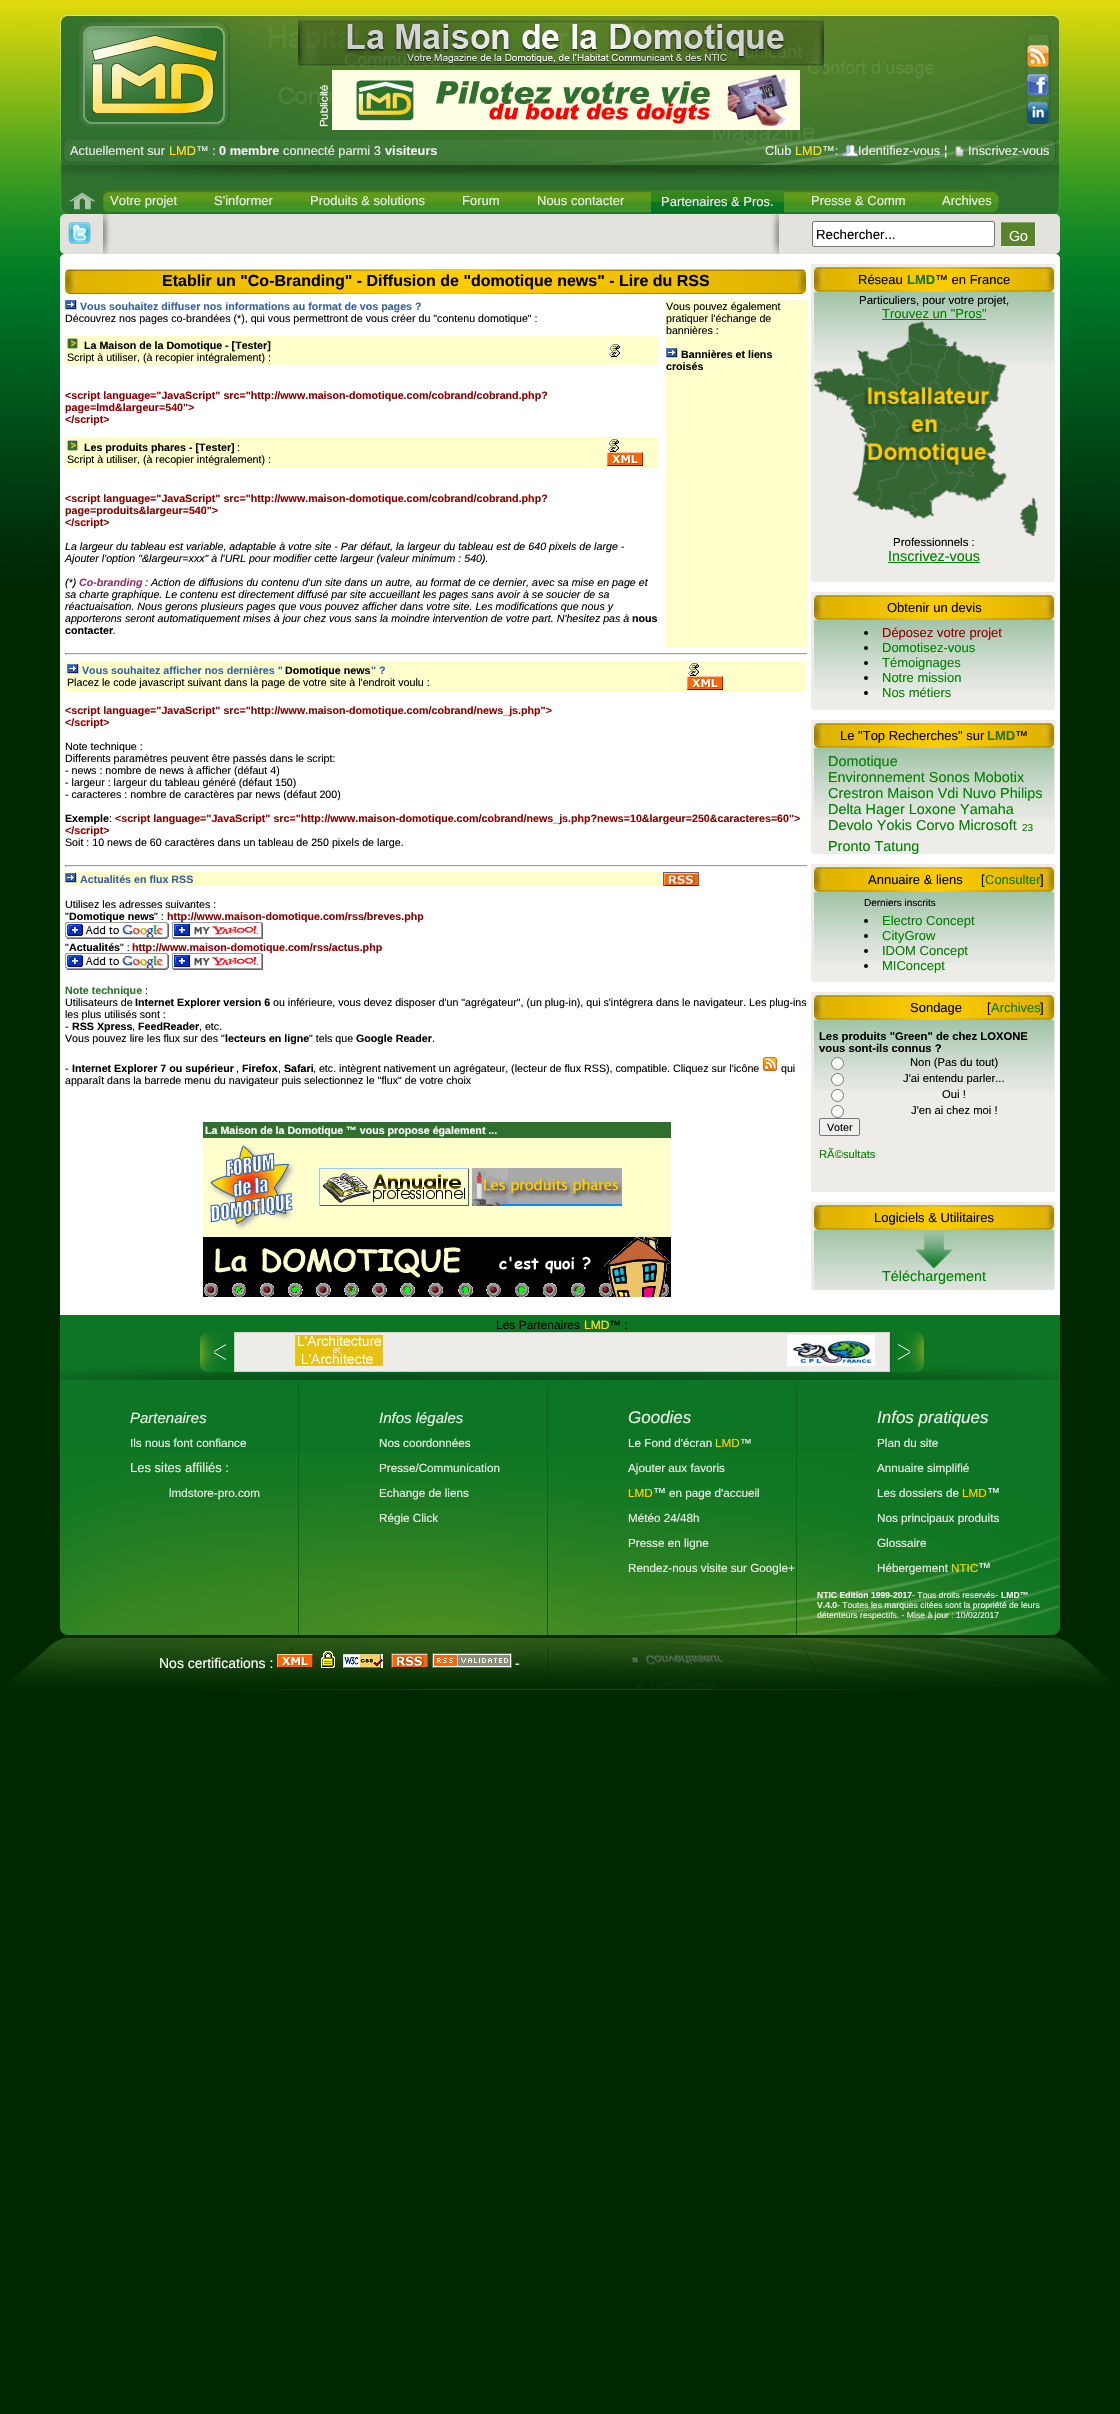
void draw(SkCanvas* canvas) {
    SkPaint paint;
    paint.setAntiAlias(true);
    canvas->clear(0xFF002800);
    canvas->drawImageRect(SkImages::DeferredFromEncodedData(SkData::MakeFromFileName("img1.png")), SkRect::MakeXYWH(0, 0, 1120, 583), SkSamplingOptions());
    canvas->drawImageRect(SkImages::DeferredFromEncodedData(SkData::MakeFromFileName("img2.png")), SkRect::MakeXYWH(60, 15, 1000, 150), SkSamplingOptions());
    canvas->drawImageRect(SkImages::DeferredFromEncodedData(SkData::MakeFromFileName("img3.png")), SkRect::MakeXYWH(83, 26, 142, 98), SkSamplingOptions());
    canvas->drawImageRect(SkImages::DeferredFromEncodedData(SkData::MakeFromFileName("img4.png")), SkRect::MakeXYWH(332, 70, 468, 60), SkSamplingOptions());
    canvas->drawImageRect(SkImages::DeferredFromEncodedData(SkData::MakeFromFileName("img5.png")), SkRect::MakeXYWH(1027, 45, 22, 23), SkSamplingOptions());
    canvas->drawImageRect(SkImages::DeferredFromEncodedData(SkData::MakeFromFileName("img6.png")), SkRect::MakeXYWH(1026, 74, 23, 22), SkSamplingOptions());
    canvas->drawImageRect(SkImages::DeferredFromEncodedData(SkData::MakeFromFileName("img7.png")), SkRect::MakeXYWH(1027, 102, 22, 22), SkSamplingOptions());
    SkFont font1(fontMgr->matchFamilyStyle("Liberation Sans", SkFontStyle::Normal()), 12.75f);
    font1.setSubpixel(true);
    paint.setColor(0xFFEDECE9);
    canvas->drawString("Actuellement sur", 70, 155, font1, paint);
    paint.setColor(0xFFFFE02A);
    canvas->drawString("LMD", 169, 155, font1, paint);
    paint.setColor(0xFFEDECE9);
    canvas->drawString("™ :", 196, 155, font1, paint);
    SkFont font2(fontMgr->matchFamilyStyle("Liberation Sans", SkFontStyle::Bold()), 12.75f);
    font2.setSubpixel(true);
    canvas->drawString("0 membre", 219, 155, font2, paint);
    canvas->drawString("connecté parmi 3", 283, 155, font1, paint);
    canvas->drawString("visiteurs", 385, 155, font2, paint);
    canvas->drawString("Club", 765, 155, font1, paint);
    paint.setColor(0xFFFFE02A);
    canvas->drawString("LMD", 795, 155, font1, paint);
    paint.setColor(0xFFEDECE9);
    canvas->drawString("™:", 822, 155, font1, paint);
    canvas->drawImageRect(SkImages::DeferredFromEncodedData(SkData::MakeFromFileName("img8.png")), SkRect::MakeXYWH(842, 144, 16, 13), SkSamplingOptions());
    canvas->drawString("Identifiez-vous", 858, 155, font1, paint);
    paint.setColor(0xFFFFFFFF);
    canvas->drawString("¦", 944, 155, font1, paint);
    canvas->drawImageRect(SkImages::DeferredFromEncodedData(SkData::MakeFromFileName("img9.png")), SkRect::MakeXYWH(955, 146, 9, 11), SkSamplingOptions());
    paint.setColor(0xFFEDECE9);
    canvas->drawString("Inscrivez-vous", 968, 155, font1, paint);
    canvas->drawImageRect(SkImages::DeferredFromEncodedData(SkData::MakeFromFileName("img10.png")), SkRect::MakeXYWH(60, 165, 1000, 50), SkSamplingOptions());
    canvas->drawImageRect(SkImages::DeferredFromEncodedData(SkData::MakeFromFileName("img11.png")), SkRect::MakeXYWH(69, 192, 26, 18), SkSamplingOptions());
    canvas->drawImageRect(SkImages::DeferredFromEncodedData(SkData::MakeFromFileName("img12.png")), SkRect::MakeXYWH(103, 190, 896, 22), SkSamplingOptions());
    SkFont font3(fontMgr->matchFamilyStyle("Liberation Sans", SkFontStyle::Normal()), 13);
    font3.setSubpixel(true);
    canvas->drawString("Votre projet", 110, 205, font3, paint);
    canvas->drawString("S'informer", 214, 205, font3, paint);
    canvas->drawString("Produits & solutions", 310, 205, font3, paint);
    canvas->drawString("Forum", 462, 205, font3, paint);
    canvas->drawString("Nous contacter", 537, 205, font3, paint);
    canvas->drawImageRect(SkImages::DeferredFromEncodedData(SkData::MakeFromFileName("img13.png")), SkRect::MakeXYWH(651, 190, 133, 23), SkSamplingOptions());
    canvas->drawString("Partenaires & Pros.", 661, 206, font3, paint);
    canvas->drawString("Presse & Comm", 811, 205, font3, paint);
    canvas->drawString("Archives", 942, 205, font3, paint);
    paint.setColor(0xFFE3E2DF);
    canvas->drawRoundRect(SkRect::MakeXYWH(60, 214, 1000, 40), 5, 5, paint);
    canvas->drawImageRect(SkImages::DeferredFromEncodedData(SkData::MakeFromFileName("img14.png")), SkRect::MakeXYWH(68, 222, 23, 22), SkSamplingOptions());
    canvas->drawImageRect(SkImages::DeferredFromEncodedData(SkData::MakeFromFileName("img15.png")), SkRect::MakeXYWH(103, 214, 676, 40), SkSamplingOptions());
    paint.setColor(0xFFFFFFFF);
    canvas->drawRoundRect(SkRect::MakeXYWH(812.5f, 221.5f, 182, 25), 1.5f, 1.5f, paint);
    paint.setStyle(SkPaint::kStroke_Style);
    paint.setStrokeWidth(1);
    paint.setColor(0xFF767676);
    canvas->drawRoundRect(SkRect::MakeXYWH(812.5f, 221.5f, 182, 25), 1.5f, 1.5f, paint);
    SkFont font4(fontMgr->matchFamilyStyle("Liberation Sans", SkFontStyle::Normal()), 13.25f);
    font4.setSubpixel(true);
    paint.setStyle(SkPaint::kFill_Style);
    paint.setColor(0xFF000000);
    canvas->drawString("Rechercher...", 816, 239, font4, paint);
    canvas->drawImageRect(SkImages::DeferredFromEncodedData(SkData::MakeFromFileName("img16.png")), SkRect::MakeXYWH(1000, 222, 36, 25), SkSamplingOptions());
    paint.setColor(0xFFFFFFFF);
    canvas->drawPath(SkPathBuilder().moveTo(65, 254).lineTo(1055, 254).cubicTo(1058, 254, 1060, 256, 1060, 259).lineTo(1060, 1315).lineTo(60, 1315).lineTo(60, 259).cubicTo(60, 256, 62, 254, 65, 254).close().detach(), paint);
    paint.setColor(0xFFFFCC00);
    canvas->drawRoundRect(SkRect::MakeXYWH(65, 269, 741, 25), 5, 5, paint);
    canvas->drawImageRect(SkImages::DeferredFromEncodedData(SkData::MakeFromFileName("img17.png")), SkRect::MakeXYWH(65, 269, 741, 25), SkSamplingOptions());
    SkFont font5(fontMgr->matchFamilyStyle("Liberation Sans", SkFontStyle::Bold()), 16);
    font5.setSubpixel(true);
    paint.setColor(0xFF000000);
    canvas->drawString("Etablir un \"Co-Branding\" - Diffusion de \"domotique news\" - Lire du RSS", 162, 286, font5, paint);
    canvas->drawImageRect(SkImages::DeferredFromEncodedData(SkData::MakeFromFileName("img18.png")), SkRect::MakeXYWH(65, 300, 12, 10), SkSamplingOptions());
    SkFont font6(fontMgr->matchFamilyStyle("Liberation Sans", SkFontStyle::Bold()), 10.67f);
    font6.setSubpixel(true);
    paint.setColor(0xFF365FA9);
    canvas->drawString("Vous souhaitez diffuser nos informations au format de vos pages ?", 80, 310, font6, paint);
    SkFont font7(fontMgr->matchFamilyStyle("Liberation Sans", SkFontStyle::Normal()), 10.67f);
    font7.setSubpixel(true);
    paint.setColor(0xFF000000);
    canvas->drawString("Découvrez nos pages co-brandées (*), qui vous permettront de vous créer du \"contenu domotique\" :", 65, 322, font7, paint);
    paint.setColor(0xFFFFFFCC);
    canvas->drawRect(SkRect::MakeXYWH(65, 336, 593, 29), paint);
    canvas->drawImageRect(SkImages::DeferredFromEncodedData(SkData::MakeFromFileName("img19.png")), SkRect::MakeXYWH(67, 338, 11, 11), SkSamplingOptions());
    paint.setColor(0xFF000000);
    canvas->drawString("La Maison de la Domotique - [Tester]", 84, 349, font6, paint);
    canvas->drawString("Script à utiliser, (à recopier intégralement) :", 67, 361, font7, paint);
    canvas->drawImageRect(SkImages::DeferredFromEncodedData(SkData::MakeFromFileName("img20.png")), SkRect::MakeXYWH(608, 344, 13, 13), SkSamplingOptions());
    paint.setColor(0xFF900000);
    canvas->drawString("<script language=\"JavaScript\" src=\"http://www.maison-domotique.com/cobrand/cobrand.php?", 65, 399, font6, paint);
    canvas->drawString("page=lmd&largeur=540\">", 65, 411, font6, paint);
    canvas->drawString("</script>", 65, 423, font6, paint);
    paint.setColor(0xFFFFFFCC);
    canvas->drawRect(SkRect::MakeXYWH(65, 437, 593, 31), paint);
    canvas->drawImageRect(SkImages::DeferredFromEncodedData(SkData::MakeFromFileName("img19.png")), SkRect::MakeXYWH(67, 440, 11, 11), SkSamplingOptions());
    paint.setColor(0xFF000000);
    canvas->drawString("Les produits phares - [Tester]", 84, 451, font6, paint);
    canvas->drawString(":", 237, 451, font7, paint);
    canvas->drawString("Script à utiliser, (à recopier intégralement) :", 67, 463, font7, paint);
    canvas->drawImageRect(SkImages::DeferredFromEncodedData(SkData::MakeFromFileName("img20.png")), SkRect::MakeXYWH(607, 439, 13, 13), SkSamplingOptions());
    canvas->drawImageRect(SkImages::DeferredFromEncodedData(SkData::MakeFromFileName("img21.png")), SkRect::MakeXYWH(607, 452, 36, 14), SkSamplingOptions());
    paint.setColor(0xFF900000);
    canvas->drawString("<script language=\"JavaScript\" src=\"http://www.maison-domotique.com/cobrand/cobrand.php?", 65, 502, font6, paint);
    canvas->drawString("page=produits&largeur=540\">", 65, 514, font6, paint);
    canvas->drawString("</script>", 65, 526, font6, paint);
    SkFont font8(fontMgr->matchFamilyStyle("Liberation Sans", SkFontStyle::Italic()), 10.67f);
    font8.setSubpixel(true);
    paint.setColor(0xFF000000);
    canvas->drawString("La largeur du tableau est variable, adaptable à votre site - Par défaut, la largeur du tableau est de 640 pixels de large -", 65, 550, font8, paint);
    canvas->drawString("Ajouter l'option \"&largeur=xxx\" à l'URL pour modifier cette largeur (valeur minimum : 540).", 65, 562, font8, paint);
    canvas->drawString("(*)", 65, 586, font8, paint);
    SkFont font9(fontMgr->matchFamilyStyle("Liberation Sans", SkFontStyle::BoldItalic()), 10.67f);
    font9.setSubpixel(true);
    paint.setColor(0xFF993366);
    canvas->drawString("Co-branding", 79, 586, font9, paint);
    paint.setColor(0xFF000000);
    canvas->drawString(": Action de diffusions du contenu d'un site dans un autre, au format de ce dernier, avec sa mise en page et", 145, 586, font8, paint);
    canvas->drawString("sa charte graphique. Le contenu est directement diffusé par site accueillant les pages sans avoir à se soucier de sa", 65, 598, font8, paint);
    canvas->drawString("réactuaisation. Nous gerons plusieurs pages que vous pouvez afficher dans votre site. Les modifications que nous y", 65, 610, font8, paint);
    canvas->drawString("apporterons seront automatiquement mises à jour chez vous sans la moindre intervention de votre part. N'hesitez pas à", 65, 622, font8, paint);
    canvas->drawString("nous", 632, 622, font6, paint);
    canvas->drawString("contacter", 65, 634, font6, paint);
    canvas->drawString(".", 113, 634, font8, paint);
    paint.setColor(0xFFFFFFCC);
    canvas->drawRect(SkRect::MakeXYWH(666, 300, 142, 348), paint);
    paint.setColor(0xFF000000);
    canvas->drawString("Vous pouvez également", 666, 310, font7, paint);
    canvas->drawString("pratiquer l'échange de", 666, 322, font7, paint);
    canvas->drawString("bannières :", 666, 334, font7, paint);
    canvas->drawImageRect(SkImages::DeferredFromEncodedData(SkData::MakeFromFileName("img22.png")), SkRect::MakeXYWH(666, 348, 12, 10), SkSamplingOptions());
    canvas->drawString("Bannières et liens", 681, 358, font6, paint);
    canvas->drawString("croisés", 666, 370, font6, paint);
    paint.setColor(0xFF9F9F9F);
    canvas->drawRect(SkRect::MakeXYWH(65, 653, 743, 1), paint);
    paint.setColor(0xFFEEEEEE);
    canvas->drawRect(SkRect::MakeXYWH(807, 653, 1, 2), paint);
    canvas->drawRect(SkRect::MakeXYWH(65, 654, 743, 1), paint);
    paint.setColor(0xFF9F9F9F);
    canvas->drawRect(SkRect::MakeXYWH(65, 653, 1, 2), paint);
    paint.setColor(0xFFFFFFCC);
    canvas->drawRect(SkRect::MakeXYWH(65, 661, 741, 31), paint);
    canvas->drawImageRect(SkImages::DeferredFromEncodedData(SkData::MakeFromFileName("img22.png")), SkRect::MakeXYWH(67, 664, 12, 10), SkSamplingOptions());
    paint.setColor(0xFF365FA9);
    canvas->drawString("Vous souhaitez afficher nos dernières \"", 82, 674, font6, paint);
    paint.setColor(0xFF000000);
    canvas->drawString("Domotique news", 285, 674, font6, paint);
    paint.setColor(0xFF365FA9);
    canvas->drawString("\" ?", 371, 674, font6, paint);
    paint.setColor(0xFF000000);
    canvas->drawString("Placez le code javascript suivant dans la page de votre site à l'endroit voulu :", 67, 686, font7, paint);
    canvas->drawImageRect(SkImages::DeferredFromEncodedData(SkData::MakeFromFileName("img20.png")), SkRect::MakeXYWH(687, 663, 13, 13), SkSamplingOptions());
    canvas->drawImageRect(SkImages::DeferredFromEncodedData(SkData::MakeFromFileName("img21.png")), SkRect::MakeXYWH(687, 676, 36, 14), SkSamplingOptions());
    paint.setColor(0xFF900000);
    canvas->drawString("<script language=\"JavaScript\" src=\"http://www.maison-domotique.com/cobrand/news_js.php\">", 65, 714, font6, paint);
    canvas->drawString("</script>", 65, 726, font6, paint);
    paint.setColor(0xFF000000);
    canvas->drawString("Note technique :", 65, 750, font7, paint);
    canvas->drawString("Differents paramètres peuvent être passés dans le script:", 65, 762, font7, paint);
    canvas->drawString("- news : nombre de news à afficher (défaut 4)", 65, 774, font7, paint);
    canvas->drawString("- largeur : largeur du tableau généré (défaut 150)", 65, 786, font7, paint);
    canvas->drawString("- caracteres : nombre de caractères par news (défaut 200)", 65, 798, font7, paint);
    canvas->drawString("Exemple", 65, 822, font6, paint);
    canvas->drawString(":", 109, 822, font7, paint);
    paint.setColor(0xFF900000);
    canvas->drawString("<script language=\"JavaScript\" src=\"http://www.maison-domotique.com/cobrand/news_js.php?news=10&largeur=250&caracteres=60\">", 115, 822, font6, paint);
    canvas->drawString("</script>", 65, 834, font6, paint);
    paint.setColor(0xFF000000);
    canvas->drawString("Soit : 10 news de 60 caractères dans un tableau de 250 pixels de large.", 65, 846, font7, paint);
    paint.setColor(0xFF9F9F9F);
    canvas->drawRect(SkRect::MakeXYWH(65, 865, 743, 1), paint);
    paint.setColor(0xFFEEEEEE);
    canvas->drawRect(SkRect::MakeXYWH(807, 865, 1, 2), paint);
    canvas->drawRect(SkRect::MakeXYWH(65, 866, 743, 1), paint);
    paint.setColor(0xFF9F9F9F);
    canvas->drawRect(SkRect::MakeXYWH(65, 865, 1, 2), paint);
    paint.setColor(0xFFFFFFCC);
    canvas->drawRect(SkRect::MakeXYWH(65, 872, 598, 14), paint);
    canvas->drawImageRect(SkImages::DeferredFromEncodedData(SkData::MakeFromFileName("img22.png")), SkRect::MakeXYWH(65, 873, 12, 10), SkSamplingOptions());
    paint.setColor(0xFF365FA9);
    canvas->drawString("Actualités en flux RSS", 80, 883, font6, paint);
    canvas->drawImageRect(SkImages::DeferredFromEncodedData(SkData::MakeFromFileName("img23.png")), SkRect::MakeXYWH(663, 872, 36, 14), SkSamplingOptions());
    paint.setColor(0xFF000000);
    canvas->drawString("Utilisez les adresses suivantes :", 65, 908, font7, paint);
    canvas->drawString("\"", 65, 920, font7, paint);
    canvas->drawString("Domotique news", 69, 920, font6, paint);
    canvas->drawString("\" :", 154, 920, font7, paint);
    paint.setColor(0xFF900000);
    canvas->drawString("http://www.maison-domotique.com/rss/breves.php", 167, 920, font6, paint);
    canvas->drawImageRect(SkImages::DeferredFromEncodedData(SkData::MakeFromFileName("img24.png")), SkRect::MakeXYWH(65, 922, 104, 17), SkSamplingOptions());
    canvas->drawImageRect(SkImages::DeferredFromEncodedData(SkData::MakeFromFileName("img25.png")), SkRect::MakeXYWH(172, 922, 91, 17), SkSamplingOptions());
    paint.setColor(0xFF000000);
    canvas->drawString("\"", 65, 951, font7, paint);
    canvas->drawString("Actualités", 69, 951, font6, paint);
    canvas->drawString("\" :", 120, 951, font7, paint);
    paint.setColor(0xFF900000);
    canvas->drawString("http://www.maison-domotique.com/rss/actus.php", 132, 951, font6, paint);
    canvas->drawImageRect(SkImages::DeferredFromEncodedData(SkData::MakeFromFileName("img24.png")), SkRect::MakeXYWH(65, 953, 104, 17), SkSamplingOptions());
    canvas->drawImageRect(SkImages::DeferredFromEncodedData(SkData::MakeFromFileName("img25.png")), SkRect::MakeXYWH(172, 953, 91, 17), SkSamplingOptions());
    paint.setColor(0xFF2F702E);
    canvas->drawString("Note technique", 65, 994, font6, paint);
    paint.setColor(0xFF000000);
    canvas->drawString(":", 145, 994, font7, paint);
    canvas->drawString("Utilisateurs de", 65, 1006, font7, paint);
    canvas->drawString("Internet Explorer version 6", 135, 1006, font6, paint);
    canvas->drawString("ou inférieure, vous devez disposer d'un \"agrégateur\", (un plug-in), qui s'intégrera dans le navigateur. Les plug-ins", 273, 1006, font7, paint);
    canvas->drawString("les plus utilisés sont :", 65, 1018, font7, paint);
    canvas->drawString("-", 65, 1030, font7, paint);
    canvas->drawString("RSS Xpress", 72, 1030, font6, paint);
    canvas->drawString("FeedReader", 138, 1030, font6, paint);
    canvas->drawString(", etc.", 199, 1030, font7, paint);
    canvas->drawString(",", 132, 1030, font7, paint);
    canvas->drawString("Vous pouvez lire les flux sur des \"", 65, 1042, font7, paint);
    canvas->drawString("lecteurs en ligne", 225, 1042, font6, paint);
    canvas->drawString("\" tels que", 309, 1042, font7, paint);
    canvas->drawString("Google Reader", 356, 1042, font6, paint);
    canvas->drawString(".", 432, 1042, font7, paint);
    canvas->drawString("-", 65, 1072, font7, paint);
    canvas->drawString("Internet Explorer 7 ou supérieur", 72, 1072, font6, paint);
    canvas->drawString("Firefox", 242, 1072, font6, paint);
    canvas->drawString("Safari", 284, 1072, font6, paint);
    canvas->drawString(", etc. intègrent nativement un agrégateur, (lecteur de flux RSS), compatible. Cliquez sur l'icône", 313, 1072, font7, paint);
    canvas->drawImageRect(SkImages::DeferredFromEncodedData(SkData::MakeFromFileName("img26.png")), SkRect::MakeXYWH(763, 1057, 14, 14), SkSamplingOptions());
    canvas->drawString("qui", 781, 1072, font7, paint);
    canvas->drawString(",", 236, 1072, font7, paint);
    canvas->drawString(",", 278, 1072, font7, paint);
    canvas->drawString("apparaît dans la barrede menu du navigateur puis selectionnez le \"flux\" de votre choix", 65, 1084, font7, paint);
    paint.setColor(0xFFFFFFCC);
    canvas->drawRect(SkRect::MakeXYWH(203, 1138, 468, 99), paint);
    paint.setColor(0xFF2F702E);
    canvas->drawRect(SkRect::MakeXYWH(203, 1122, 468, 16), paint);
    paint.setColor(0xFFFFFFFF);
    canvas->drawString("La Maison de la Domotique ™ vous propose également ...", 205, 1134, font6, paint);
    canvas->drawImageRect(SkImages::DeferredFromEncodedData(SkData::MakeFromFileName("img27.png")), SkRect::MakeXYWH(210, 1145, 85, 85), SkSamplingOptions());
    canvas->drawImageRect(SkImages::DeferredFromEncodedData(SkData::MakeFromFileName("img28.png")), SkRect::MakeXYWH(319, 1168, 150, 38), SkSamplingOptions());
    canvas->drawImageRect(SkImages::DeferredFromEncodedData(SkData::MakeFromFileName("img29.png")), SkRect::MakeXYWH(472, 1168, 150, 38), SkSamplingOptions());
    canvas->drawImageRect(SkImages::DeferredFromEncodedData(SkData::MakeFromFileName("img30.png")), SkRect::MakeXYWH(203, 1237, 468, 60), SkSamplingOptions());
    paint.setColor(0xFFEDECE9);
    canvas->drawPath(SkPathBuilder().moveTo(811, 264).lineTo(1055, 264).lineTo(1055, 580).cubicTo(1055, 581, 1054, 582, 1053, 582).lineTo(813, 582).cubicTo(812, 582, 811, 581, 811, 580).close().detach(), paint);
    paint.setColor(0xFFFFCC00);
    canvas->drawRoundRect(SkRect::MakeXYWH(814, 267, 240, 25), 5, 5, paint);
    canvas->drawImageRect(SkImages::DeferredFromEncodedData(SkData::MakeFromFileName("img31.png")), SkRect::MakeXYWH(814, 267, 240, 25), SkSamplingOptions());
    paint.setColor(0xFF000000);
    canvas->drawString("Réseau", 858, 284, font3, paint);
    SkFont font10(fontMgr->matchFamilyStyle("Liberation Sans", SkFontStyle::Bold()), 13);
    font10.setSubpixel(true);
    paint.setColor(0xFF0D7524);
    canvas->drawString("LMD", 907, 284, font10, paint);
    paint.setColor(0xFF000000);
    canvas->drawString("™ en France", 935, 284, font3, paint);
    canvas->drawImageRect(SkImages::DeferredFromEncodedData(SkData::MakeFromFileName("img32.png")), SkRect::MakeXYWH(814, 292, 240, 71), SkSamplingOptions());
    SkFont font11(fontMgr->matchFamilyStyle("Liberation Sans", SkFontStyle::Normal()), 11.5f);
    font11.setSubpixel(true);
    canvas->drawString("Particuliers, pour votre projet,", 859, 304, font11, paint);
    paint.setColor(0xFF008000);
    canvas->drawString("Trouvez un \"Pros\"", 882, 318, font3, paint);
    canvas->drawRect(SkRect::MakeXYWH(882, 319, 104, 1), paint);
    canvas->drawImageRect(SkImages::DeferredFromEncodedData(SkData::MakeFromFileName("img33.png")), SkRect::MakeXYWH(814, 321, 224, 215), SkSamplingOptions());
    paint.setColor(0xFF000000);
    canvas->drawString("Professionnels :", 893, 546, font11, paint);
    SkFont font12(fontMgr->matchFamilyStyle("Liberation Sans", SkFontStyle::Normal()), 14.4f);
    font12.setSubpixel(true);
    paint.setColor(0xFF008000);
    canvas->drawString("Inscrivez-vous", 888, 561, font12, paint);
    canvas->drawRect(SkRect::MakeXYWH(888, 562, 92, 1), paint);
    paint.setColor(0xFFEDECE9);
    canvas->drawPath(SkPathBuilder().moveTo(811, 592).lineTo(1055, 592).lineTo(1055, 708).cubicTo(1055, 709, 1054, 710, 1053, 710).lineTo(813, 710).cubicTo(812, 710, 811, 709, 811, 708).close().detach(), paint);
    paint.setColor(0xFFFFCC00);
    canvas->drawRoundRect(SkRect::MakeXYWH(814, 595, 240, 25), 5, 5, paint);
    canvas->drawImageRect(SkImages::DeferredFromEncodedData(SkData::MakeFromFileName("img31.png")), SkRect::MakeXYWH(814, 595, 240, 25), SkSamplingOptions());
    paint.setColor(0xFF000000);
    canvas->drawString("Obtenir un devis", 887, 612, font3, paint);
    canvas->drawImageRect(SkImages::DeferredFromEncodedData(SkData::MakeFromFileName("img32.png")), SkRect::MakeXYWH(814, 620, 240, 71), SkSamplingOptions());
    canvas->drawCircle(866, 633, 2, paint);
    paint.setColor(0xFF900000);
    canvas->drawString("Déposez votre projet", 882, 637, font3, paint);
    paint.setColor(0xFF000000);
    canvas->drawCircle(866, 648, 2, paint);
    paint.setColor(0xFF008000);
    canvas->drawString("Domotisez-vous", 882, 652, font3, paint);
    paint.setColor(0xFF000000);
    canvas->drawCircle(866, 663, 2, paint);
    paint.setColor(0xFF008000);
    canvas->drawString("Témoignages", 882, 667, font3, paint);
    paint.setColor(0xFF000000);
    canvas->drawCircle(866, 678, 2, paint);
    paint.setColor(0xFF008000);
    canvas->drawString("Notre mission", 882, 682, font3, paint);
    paint.setColor(0xFF000000);
    canvas->drawCircle(866, 693, 2, paint);
    paint.setColor(0xFF008000);
    canvas->drawString("Nos métiers", 882, 697, font3, paint);
    paint.setColor(0xFFEDECE9);
    canvas->drawPath(SkPathBuilder().moveTo(811, 720).lineTo(1055, 720).lineTo(1055, 852).cubicTo(1055, 853, 1054, 854, 1053, 854).lineTo(813, 854).cubicTo(812, 854, 811, 853, 811, 852).close().detach(), paint);
    paint.setColor(0xFFFFCC00);
    canvas->drawRoundRect(SkRect::MakeXYWH(814, 723, 240, 25), 5, 5, paint);
    canvas->drawImageRect(SkImages::DeferredFromEncodedData(SkData::MakeFromFileName("img31.png")), SkRect::MakeXYWH(814, 723, 240, 25), SkSamplingOptions());
    paint.setColor(0xFF000000);
    canvas->drawString("Le \"Top Recherches\" sur", 840, 740, font3, paint);
    paint.setColor(0xFF2F702E);
    canvas->drawString("LMD", 987, 740, font10, paint);
    paint.setColor(0xFF000000);
    canvas->drawString("™", 1015, 740, font3, paint);
    canvas->drawImageRect(SkImages::DeferredFromEncodedData(SkData::MakeFromFileName("img32.png")), SkRect::MakeXYWH(814, 748, 240, 71), SkSamplingOptions());
    paint.setColor(0xFF008000);
    canvas->drawString("Domotique", 828, 766, font12, paint);
    canvas->drawString("Environnement Sonos Mobotix", 828, 782, font12, paint);
    canvas->drawString("Crestron Maison Vdi Nuvo Philips", 828, 798, font12, paint);
    canvas->drawString("Delta Hager Loxone Yamaha", 828, 814, font12, paint);
    canvas->drawString("Devolo Yokis Corvo Microsoft", 828, 830, font12, paint);
    SkFont font13(fontMgr->matchFamilyStyle("Liberation Sans", SkFontStyle::Normal()), 10);
    font13.setSubpixel(true);
    canvas->drawString("23", 1022, 831, font13, paint);
    canvas->drawString("Pronto Tatung", 828, 851, font12, paint);
    paint.setColor(0xFFEDECE9);
    canvas->drawPath(SkPathBuilder().moveTo(811, 864).lineTo(1055, 864).lineTo(1055, 980).cubicTo(1055, 981, 1054, 982, 1053, 982).lineTo(813, 982).cubicTo(812, 982, 811, 981, 811, 980).close().detach(), paint);
    paint.setColor(0xFFFFCC00);
    canvas->drawRoundRect(SkRect::MakeXYWH(814, 867, 240, 25), 5, 5, paint);
    canvas->drawImageRect(SkImages::DeferredFromEncodedData(SkData::MakeFromFileName("img31.png")), SkRect::MakeXYWH(814, 867, 240, 25), SkSamplingOptions());
    paint.setColor(0xFF000000);
    canvas->drawString("Annuaire & liens", 868, 884, font3, paint);
    canvas->drawString("[", 981, 884, font3, paint);
    paint.setColor(0xFF008000);
    canvas->drawString("Consulter", 985, 884, font3, paint);
    paint.setColor(0xFF000000);
    canvas->drawString("]", 1040, 884, font3, paint);
    canvas->drawImageRect(SkImages::DeferredFromEncodedData(SkData::MakeFromFileName("img32.png")), SkRect::MakeXYWH(814, 892, 240, 71), SkSamplingOptions());
    canvas->drawString("Derniers inscrits", 864, 906, font13, paint);
    canvas->drawCircle(866, 921, 2, paint);
    paint.setColor(0xFF008000);
    canvas->drawString("Electro Concept", 882, 925, font3, paint);
    paint.setColor(0xFF000000);
    canvas->drawCircle(866, 936, 2, paint);
    paint.setColor(0xFF008000);
    canvas->drawString("CityGrow", 882, 940, font3, paint);
    paint.setColor(0xFF000000);
    canvas->drawCircle(866, 951, 2, paint);
    paint.setColor(0xFF008000);
    canvas->drawString("IDOM Concept", 882, 955, font3, paint);
    paint.setColor(0xFF000000);
    canvas->drawCircle(866, 966, 2, paint);
    paint.setColor(0xFF008000);
    canvas->drawString("MIConcept", 882, 970, font3, paint);
    paint.setColor(0xFFEDECE9);
    canvas->drawPath(SkPathBuilder().moveTo(811, 992).lineTo(1055, 992).lineTo(1055, 1190).cubicTo(1055, 1191, 1054, 1192, 1053, 1192).lineTo(813, 1192).cubicTo(812, 1192, 811, 1191, 811, 1190).close().detach(), paint);
    paint.setColor(0xFFFFCC00);
    canvas->drawRoundRect(SkRect::MakeXYWH(814, 995, 240, 25), 5, 5, paint);
    canvas->drawImageRect(SkImages::DeferredFromEncodedData(SkData::MakeFromFileName("img34.png")), SkRect::MakeXYWH(814, 995, 240, 25), SkSamplingOptions());
    paint.setColor(0xFF000000);
    canvas->drawString("Sondage", 910, 1012, font3, paint);
    canvas->drawString("[", 987, 1012, font3, paint);
    paint.setColor(0xFF008000);
    canvas->drawString("Archives", 991, 1012, font3, paint);
    paint.setColor(0xFF000000);
    canvas->drawString("]", 1040, 1012, font3, paint);
    canvas->drawImageRect(SkImages::DeferredFromEncodedData(SkData::MakeFromFileName("img32.png")), SkRect::MakeXYWH(814, 1020, 240, 71), SkSamplingOptions());
    SkFont font14(fontMgr->matchFamilyStyle("Liberation Sans", SkFontStyle::Bold()), 11.25f);
    font14.setSubpixel(true);
    canvas->drawString("Les produits \"Green\" de chez LOXONE", 819, 1040, font14, paint);
    canvas->drawString("vous sont-ils connus ?", 819, 1052, font14, paint);
    paint.setColor(0xFFFFFFFF);
    canvas->drawCircle(837.5f, 1063.5f, 6, paint);
    paint.setStyle(SkPaint::kStroke_Style);
    paint.setColor(0xFF767676);
    canvas->drawCircle(837.5f, 1063.5f, 6, paint);
    SkFont font15(fontMgr->matchFamilyStyle("Liberation Sans", SkFontStyle::Normal()), 11.25f);
    font15.setSubpixel(true);
    paint.setStyle(SkPaint::kFill_Style);
    paint.setColor(0xFF000000);
    canvas->drawString("Non (Pas du tout)", 910, 1066, font15, paint);
    paint.setColor(0xFFFFFFFF);
    canvas->drawCircle(837.5f, 1079.5f, 6, paint);
    paint.setStyle(SkPaint::kStroke_Style);
    paint.setColor(0xFF767676);
    canvas->drawCircle(837.5f, 1079.5f, 6, paint);
    paint.setStyle(SkPaint::kFill_Style);
    paint.setColor(0xFF000000);
    canvas->drawString("J'ai entendu parler...", 903, 1082, font15, paint);
    paint.setColor(0xFFFFFFFF);
    canvas->drawCircle(837.5f, 1095.5f, 6, paint);
    paint.setStyle(SkPaint::kStroke_Style);
    paint.setColor(0xFF767676);
    canvas->drawCircle(837.5f, 1095.5f, 6, paint);
    paint.setStyle(SkPaint::kFill_Style);
    paint.setColor(0xFF000000);
    canvas->drawString("Oui !", 942, 1098, font15, paint);
    paint.setColor(0xFFFFFFFF);
    canvas->drawCircle(837.5f, 1111.5f, 6, paint);
    paint.setStyle(SkPaint::kStroke_Style);
    paint.setColor(0xFF767676);
    canvas->drawCircle(837.5f, 1111.5f, 6, paint);
    paint.setStyle(SkPaint::kFill_Style);
    paint.setColor(0xFF000000);
    canvas->drawString("J'en ai chez moi !", 911, 1114, font15, paint);
    paint.setColor(0xFFEFEFEF);
    canvas->drawRoundRect(SkRect::MakeXYWH(819.5f, 1118.5f, 40, 17), 1.5f, 1.5f, paint);
    paint.setStyle(SkPaint::kStroke_Style);
    paint.setColor(0xFF767676);
    canvas->drawRoundRect(SkRect::MakeXYWH(819.5f, 1118.5f, 40, 17), 1.5f, 1.5f, paint);
    paint.setStyle(SkPaint::kFill_Style);
    paint.setColor(0xFF000000);
    canvas->drawString("Voter", 827, 1131, font7, paint);
    paint.setColor(0xFF008000);
    canvas->drawString("RÃ©sultats", 819, 1158, font15, paint);
    paint.setColor(0xFFEDECE9);
    canvas->drawPath(SkPathBuilder().moveTo(811, 1202).lineTo(1055, 1202).lineTo(1055, 1288).cubicTo(1055, 1289, 1054, 1290, 1053, 1290).lineTo(813, 1290).cubicTo(812, 1290, 811, 1289, 811, 1288).close().detach(), paint);
    paint.setColor(0xFFFFCC00);
    canvas->drawRoundRect(SkRect::MakeXYWH(814, 1205, 240, 25), 5, 5, paint);
    canvas->drawImageRect(SkImages::DeferredFromEncodedData(SkData::MakeFromFileName("img31.png")), SkRect::MakeXYWH(814, 1205, 240, 25), SkSamplingOptions());
    paint.setColor(0xFF000000);
    canvas->drawString("Logiciels & Utilitaires", 874, 1222, font3, paint);
    canvas->drawImageRect(SkImages::DeferredFromEncodedData(SkData::MakeFromFileName("img35.png")), SkRect::MakeXYWH(814, 1230, 240, 60), SkSamplingOptions());
    canvas->drawImageRect(SkImages::DeferredFromEncodedData(SkData::MakeFromFileName("img36.png")), SkRect::MakeXYWH(915, 1231, 38, 37), SkSamplingOptions());
    paint.setColor(0xFF008000);
    canvas->drawString("Téléchargement", 882, 1281, font12, paint);
    paint.setColor(0xFF0D7624);
    canvas->drawPath(SkPathBuilder().moveTo(60, 1315).lineTo(1060, 1315).lineTo(1060, 1627).cubicTo(1060, 1631.5f, 1056.5f, 1635, 1052, 1635).lineTo(68, 1635).cubicTo(63.5f, 1635, 60, 1631.5f, 60, 1627).close().detach(), paint);
    canvas->drawImageRect(SkImages::DeferredFromEncodedData(SkData::MakeFromFileName("img37.png")), SkRect::MakeXYWH(60, 1453, 1000, 182), SkSamplingOptions());
    canvas->drawImageRect(SkImages::DeferredFromEncodedData(SkData::MakeFromFileName("img38.png")), SkRect::MakeXYWH(60, 1367, 1000, 13), SkSamplingOptions());
    SkFont font16(fontMgr->matchFamilyStyle("Liberation Sans", SkFontStyle::Normal()), 12);
    font16.setSubpixel(true);
    paint.setColor(0xFF000000);
    canvas->drawString("Les Partenaires", 496, 1329, font16, paint);
    paint.setColor(0xFFFFE02A);
    canvas->drawString("LMD", 584, 1329, font16, paint);
    paint.setColor(0xFF000000);
    canvas->drawString("™ :", 609, 1329, font16, paint);
    canvas->drawImageRect(SkImages::DeferredFromEncodedData(SkData::MakeFromFileName("img39.png")), SkRect::MakeXYWH(200, 1332, 35, 40), SkSamplingOptions());
    paint.setColor(0xFFEDECE9);
    canvas->drawRect(SkRect::MakeXYWH(235, 1333, 654, 38), paint);
    paint.setColor(0xFFD1D0D1);
    canvas->drawRect(SkRect::MakeXYWH(235, 1332, 654, 1), paint);
    canvas->drawRect(SkRect::MakeXYWH(235, 1371, 654, 1), paint);
    canvas->drawImageRect(SkImages::DeferredFromEncodedData(SkData::MakeFromFileName("img40.png")), SkRect::MakeXYWH(295, 1335, 88, 31), SkSamplingOptions());
    canvas->drawImageRect(SkImages::DeferredFromEncodedData(SkData::MakeFromFileName("img41.png")), SkRect::MakeXYWH(787, 1335, 88, 31), SkSamplingOptions());
    canvas->drawImageRect(SkImages::DeferredFromEncodedData(SkData::MakeFromFileName("img42.png")), SkRect::MakeXYWH(889, 1332, 35, 40), SkSamplingOptions());
    paint.setColor(0xFF0B631E);
    canvas->drawRect(SkRect::MakeXYWH(298, 1385, 1, 250), paint);
    SkFont font17(fontMgr->matchFamilyStyle("Liberation Sans", SkFontStyle::Italic()), 15);
    font17.setSubpixel(true);
    paint.setColor(0xFFEDECE9);
    canvas->drawString("Partenaires", 130, 1423, font17, paint);
    SkFont font18(fontMgr->matchFamilyStyle("Liberation Sans", SkFontStyle::Normal()), 11.7f);
    font18.setSubpixel(true);
    canvas->drawString("Ils nous font confiance", 130, 1447, font18, paint);
    canvas->drawString("Les sites affiliés :", 130, 1472, font3, paint);
    canvas->drawString("lmdstore-pro.com", 169, 1497, font18, paint);
    paint.setColor(0xFF0B631E);
    canvas->drawRect(SkRect::MakeXYWH(547, 1385, 1, 250), paint);
    paint.setColor(0xFFEDECE9);
    canvas->drawString("Infos légales", 379, 1423, font17, paint);
    canvas->drawString("Nos coordonnées", 379, 1447, font18, paint);
    canvas->drawString("Presse/Communication", 379, 1472, font18, paint);
    canvas->drawString("Echange de liens", 379, 1497, font18, paint);
    canvas->drawString("Régie Click", 379, 1522, font18, paint);
    paint.setColor(0xFF0B631E);
    canvas->drawRect(SkRect::MakeXYWH(796, 1385, 1, 250), paint);
    SkFont font19(fontMgr->matchFamilyStyle("Liberation Sans", SkFontStyle::Italic()), 17);
    font19.setSubpixel(true);
    paint.setColor(0xFFEDECE9);
    canvas->drawString("Goodies", 628, 1423, font19, paint);
    canvas->drawString("Le Fond d'écran", 628, 1447, font18, paint);
    paint.setColor(0xFFFFD800);
    canvas->drawString("LMD", 715, 1447, font18, paint);
    paint.setColor(0xFFEDECE9);
    canvas->drawString("™", 740, 1447, font18, paint);
    canvas->drawString("Ajouter aux favoris", 628, 1472, font18, paint);
    paint.setColor(0xFFFFD800);
    canvas->drawString("LMD", 628, 1497, font18, paint);
    paint.setColor(0xFFEDECE9);
    canvas->drawString("™", 653, 1497, font3, paint);
    canvas->drawString("en page d'accueil", 669, 1497, font18, paint);
    canvas->drawString("Météo 24/48h", 628, 1522, font18, paint);
    canvas->drawString("Presse en ligne", 628, 1547, font18, paint);
    canvas->drawString("Rendez-nous visite sur Google+", 628, 1572, font18, paint);
    canvas->drawString("Infos pratiques", 877, 1423, font19, paint);
    canvas->drawString("Plan du site", 877, 1447, font18, paint);
    canvas->drawString("Annuaire simplifié", 877, 1472, font18, paint);
    canvas->drawString("Les dossiers de", 877, 1497, font18, paint);
    paint.setColor(0xFFFFD800);
    canvas->drawString("LMD", 962, 1497, font18, paint);
    paint.setColor(0xFFEDECE9);
    canvas->drawString("™", 987, 1497, font3, paint);
    canvas->drawString("Nos principaux produits", 877, 1522, font18, paint);
    canvas->drawString("Glossaire", 877, 1547, font18, paint);
    canvas->drawString("Hébergement", 877, 1572, font18, paint);
    paint.setColor(0xFFFFD800);
    canvas->drawString("NTIC", 951, 1572, font18, paint);
    paint.setColor(0xFFEDECE9);
    canvas->drawString("™", 978, 1572, font3, paint);
    SkFont font20(fontMgr->matchFamilyStyle("Liberation Sans", SkFontStyle::Bold()), 8.6f);
    font20.setSubpixel(true);
    canvas->drawString("NTIC Edition 1999-2017", 817, 1598, font20, paint);
    SkFont font21(fontMgr->matchFamilyStyle("Liberation Sans", SkFontStyle::Normal()), 8.6f);
    font21.setSubpixel(true);
    canvas->drawString("- Tous droits reservés-", 912, 1598, font21, paint);
    canvas->drawString("LMD™", 1001, 1598, font20, paint);
    canvas->drawString("V.4.0", 817, 1608, font20, paint);
    canvas->drawString("- Toutes les marques citées sont la propriété de leurs", 837, 1608, font21, paint);
    canvas->drawString("détenteurs respectifs. - Mise à jour : 10/02/2017", 817, 1618, font21, paint);
    canvas->drawImageRect(SkImages::DeferredFromEncodedData(SkData::MakeFromFileName("img43.png")), SkRect::MakeXYWH(1, 1636, 1113, 54), SkSamplingOptions());
    SkFont font22(fontMgr->matchFamilyStyle("Liberation Sans", SkFontStyle::Normal()), 14);
    font22.setSubpixel(true);
    paint.setColor(0xFFFFFFFF);
    canvas->drawString("Nos certifications :", 159, 1668, font22, paint);
    canvas->drawImageRect(SkImages::DeferredFromEncodedData(SkData::MakeFromFileName("img21.png")), SkRect::MakeXYWH(277, 1654, 36, 14), SkSamplingOptions());
    canvas->drawImageRect(SkImages::DeferredFromEncodedData(SkData::MakeFromFileName("img44.png")), SkRect::MakeXYWH(321, 1651, 14, 17), SkSamplingOptions());
    canvas->drawImageRect(SkImages::DeferredFromEncodedData(SkData::MakeFromFileName("img45.png")), SkRect::MakeXYWH(343, 1654, 40, 14), SkSamplingOptions());
    canvas->drawImageRect(SkImages::DeferredFromEncodedData(SkData::MakeFromFileName("img46.png")), SkRect::MakeXYWH(391, 1653, 37, 15), SkSamplingOptions());
    canvas->drawImageRect(SkImages::DeferredFromEncodedData(SkData::MakeFromFileName("img47.png")), SkRect::MakeXYWH(432, 1653, 80, 15), SkSamplingOptions());
    canvas->drawString("-", 515, 1668, font22, paint);
}
